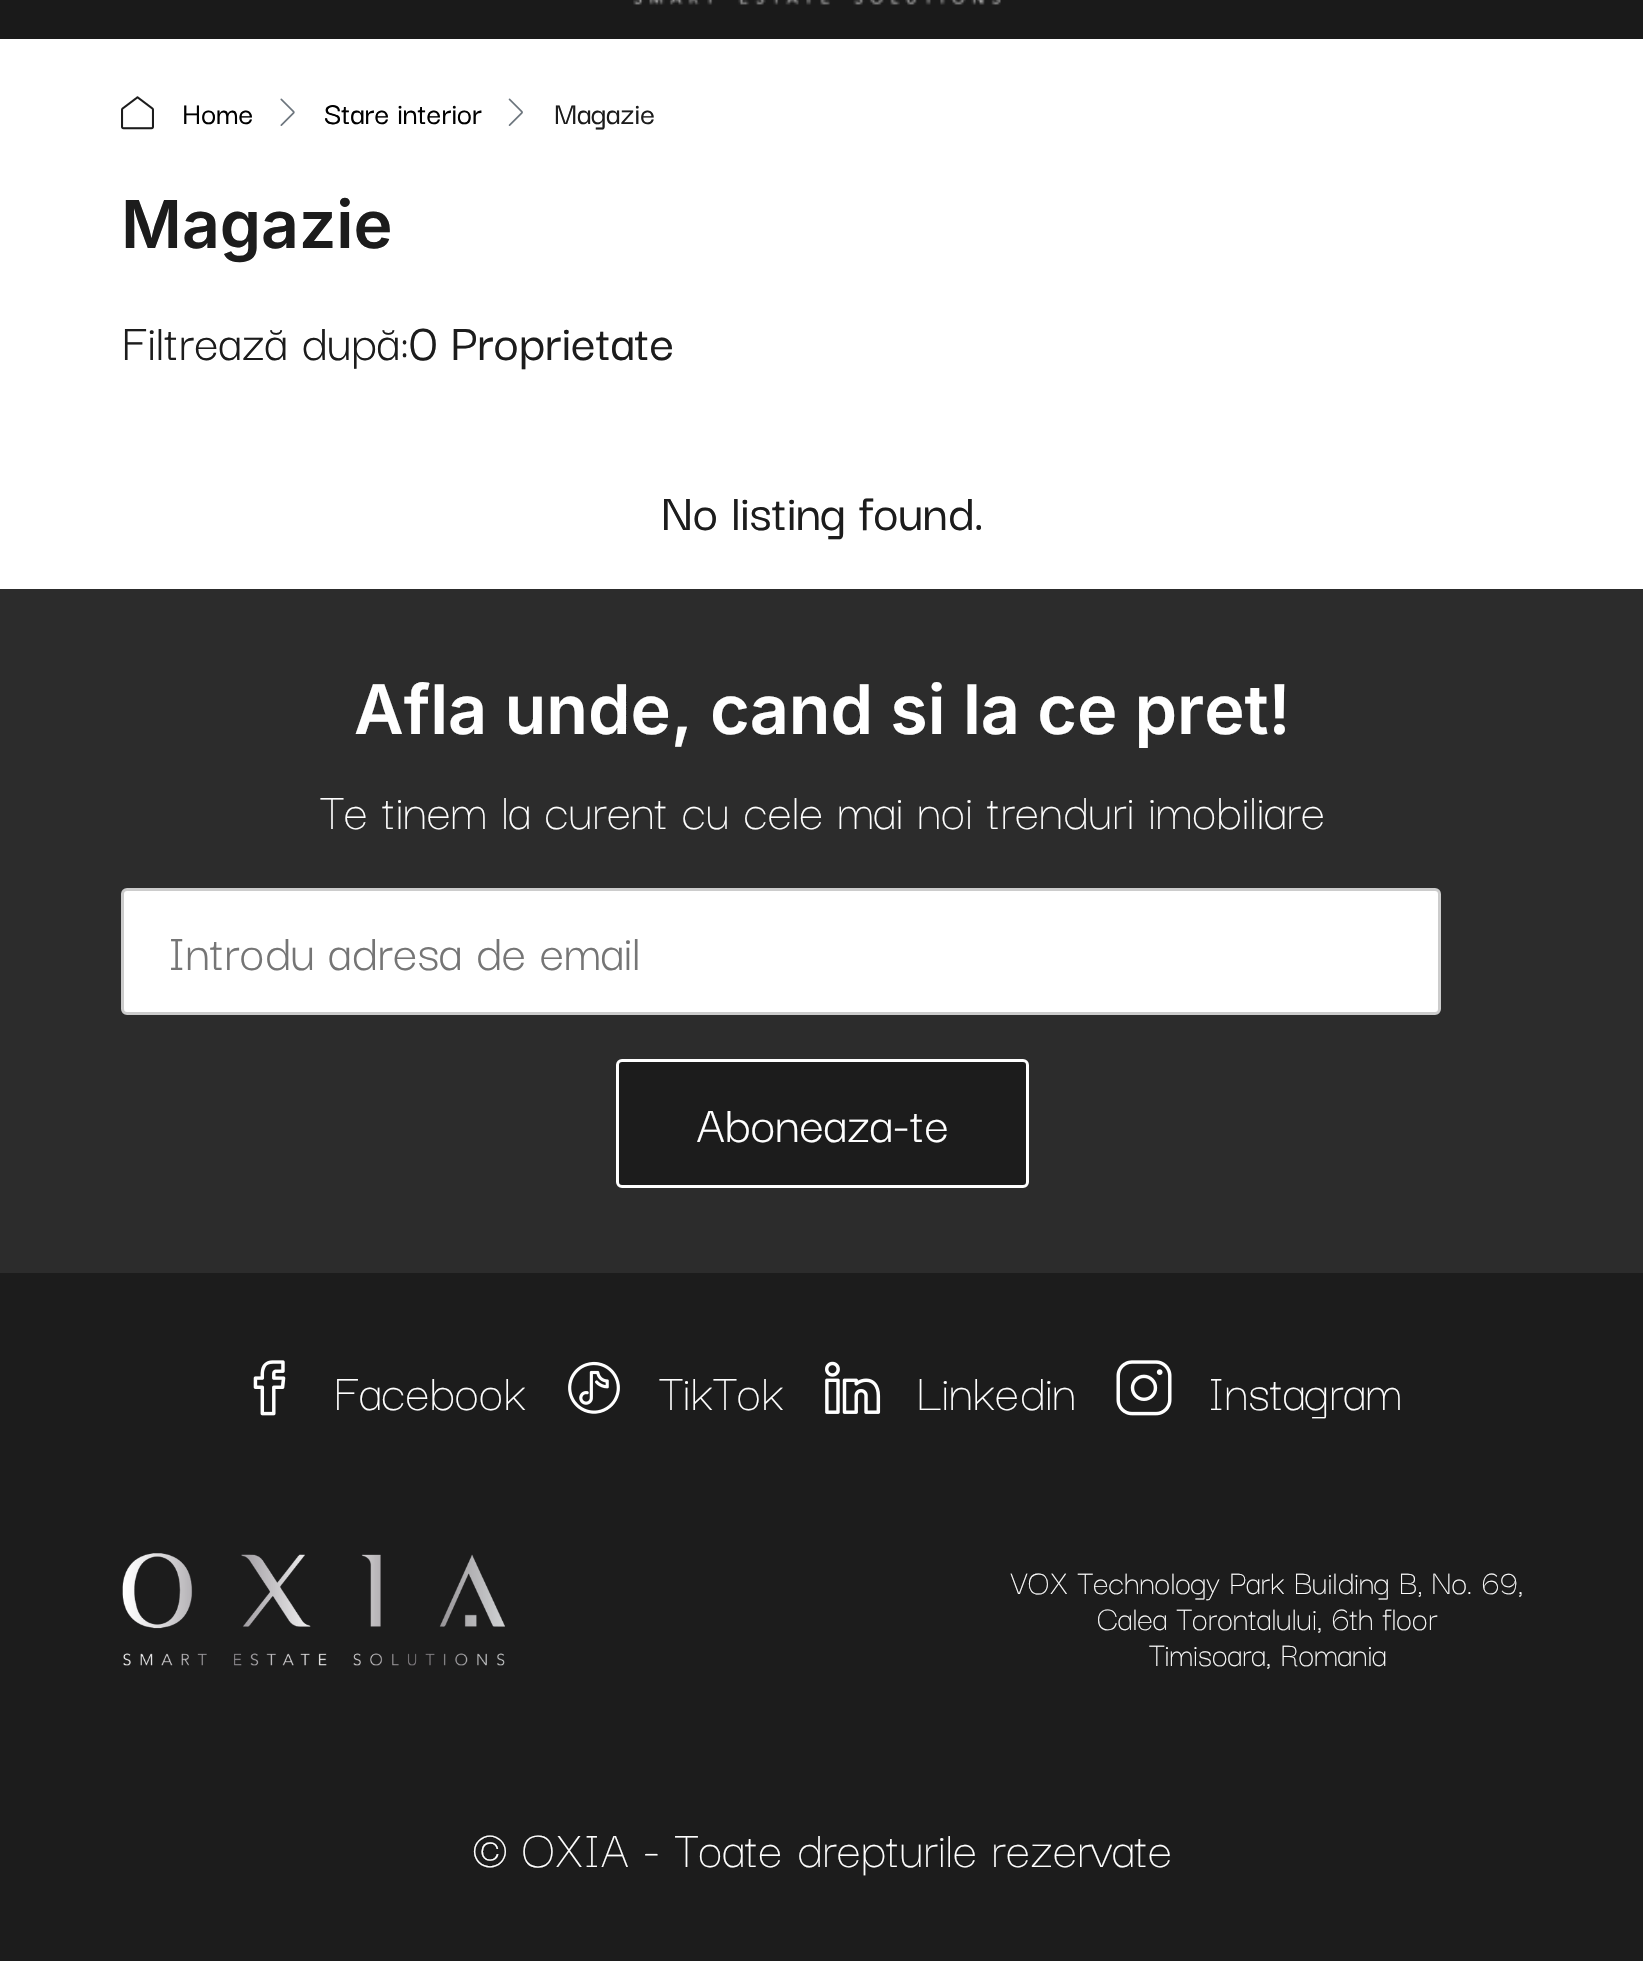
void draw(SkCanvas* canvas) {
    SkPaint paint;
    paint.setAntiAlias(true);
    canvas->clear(0xFFFFFFFF);
    paint.setColor(0xFF1A1A1A);
    canvas->drawRect(SkRect::MakeXYWH(0, 0, 1643, 39), paint);
    canvas->drawImageRect(SkImages::DeferredFromEncodedData(SkData::MakeFromFileName("img1.png")), SkRect::MakeXYWH(633, 0, 368, 5), SkSamplingOptions());
    canvas->drawImageRect(SkImages::DeferredFromEncodedData(SkData::MakeFromFileName("img2.png")), SkRect::MakeXYWH(121, 96, 33, 34), SkSamplingOptions());
    SkFont font1(fontMgr->matchFamilyStyle("Darker Grotesque", SkFontStyle(500, SkFontStyle::kNormal_Width, SkFontStyle::kUpright_Slant)), 33);
    font1.setSubpixel(true);
    paint.setColor(0xFF000000);
    canvas->drawString("Home", 182, 124, font1, paint);
    canvas->drawImageRect(SkImages::DeferredFromEncodedData(SkData::MakeFromFileName("img3.png")), SkRect::MakeXYWH(280, 98, 15, 28), SkSamplingOptions());
    canvas->drawString("Stare interior", 324, 124, font1, paint);
    canvas->drawImageRect(SkImages::DeferredFromEncodedData(SkData::MakeFromFileName("img4.png")), SkRect::MakeXYWH(508, 98, 15, 28), SkSamplingOptions());
    paint.setColor(0xFF1C1C1C);
    canvas->drawString("Magazie", 554, 124, font1, paint);
    SkFont font2(fontMgr->matchFamilyStyle("Inter", SkFontStyle(600, SkFontStyle::kNormal_Width, SkFontStyle::kUpright_Slant)), 66);
    font2.setSubpixel(true);
    canvas->drawString("Magazie", 121, 248, font2, paint);
    SkFont font3(fontMgr->matchFamilyStyle("Darker Grotesque", SkFontStyle::Normal()), 55);
    font3.setSubpixel(true);
    canvas->drawString("Filtrează după:", 121, 360, font3, paint);
    SkFont font4(fontMgr->matchFamilyStyle("Darker Grotesque", SkFontStyle(500, SkFontStyle::kNormal_Width, SkFontStyle::kUpright_Slant)), 55);
    font4.setSubpixel(true);
    canvas->drawString("0 Proprietate", 409, 360, font4, paint);
    canvas->drawString("No listing found.", 661, 530, font4, paint);
    paint.setColor(0xFF2C2C2C);
    canvas->drawRect(SkRect::MakeXYWH(0, 589, 1643, 684), paint);
    SkFont font5(fontMgr->matchFamilyStyle("Inter", SkFontStyle(600, SkFontStyle::kNormal_Width, SkFontStyle::kUpright_Slant)), 68.25f);
    font5.setSubpixel(true);
    paint.setColor(0xFFFFFFFF);
    canvas->drawString("Afla unde, cand si la ce pret!", 354, 734, font5, paint);
    SkFont font6(fontMgr->matchFamilyStyle("Darker Grotesque", SkFontStyle(300, SkFontStyle::kNormal_Width, SkFontStyle::kUpright_Slant)), 55);
    font6.setSubpixel(true);
    canvas->drawString("Te tinem la curent cu cele mai noi trenduri imobiliare", 320, 829, font6, paint);
    canvas->drawRoundRect(SkRect::MakeXYWH(122.5f, 889.5f, 1317, 124), 4.5f, 4.5f, paint);
    paint.setStyle(SkPaint::kStroke_Style);
    paint.setStrokeWidth(3);
    paint.setColor(0xFFCCCCCC);
    canvas->drawRoundRect(SkRect::MakeXYWH(122.5f, 889.5f, 1317, 124), 4.5f, 4.5f, paint);
    paint.setStyle(SkPaint::kFill_Style);
    paint.setColor(0xFF757575);
    canvas->drawString("Introdu adresa de email", 168, 970, font3, paint);
    paint.setColor(0xFF1C1C1C);
    canvas->drawRoundRect(SkRect::MakeXYWH(617.5f, 1060.5f, 410, 126), 4.5f, 4.5f, paint);
    paint.setStyle(SkPaint::kStroke_Style);
    paint.setColor(0xFFFFFFFF);
    canvas->drawRoundRect(SkRect::MakeXYWH(617.5f, 1060.5f, 410, 126), 4.5f, 4.5f, paint);
    paint.setStyle(SkPaint::kFill_Style);
    canvas->drawString("Aboneaza-te", 696, 1142, font3, paint);
    paint.setColor(0xFF1C1C1C);
    canvas->drawRect(SkRect::MakeXYWH(0, 1273, 1643, 688), paint);
    canvas->drawImageRect(SkImages::DeferredFromEncodedData(SkData::MakeFromFileName("img5.png")), SkRect::MakeXYWH(253, 1360, 33, 56), SkSamplingOptions());
    paint.setColor(0xFFFFFFFF);
    canvas->drawString("Facebook", 333, 1410, font6, paint);
    canvas->drawImageRect(SkImages::DeferredFromEncodedData(SkData::MakeFromFileName("img6.png")), SkRect::MakeXYWH(568, 1361, 52, 53), SkSamplingOptions());
    canvas->drawString("TikTok", 659, 1410, font6, paint);
    canvas->drawImageRect(SkImages::DeferredFromEncodedData(SkData::MakeFromFileName("img7.png")), SkRect::MakeXYWH(825, 1361, 56, 53), SkSamplingOptions());
    canvas->drawString("Linkedin", 916, 1410, font6, paint);
    canvas->drawImageRect(SkImages::DeferredFromEncodedData(SkData::MakeFromFileName("img8.png")), SkRect::MakeXYWH(1116, 1360, 56, 56), SkSamplingOptions());
    canvas->drawString("Instagram", 1208, 1410, font6, paint);
    canvas->drawImageRect(SkImages::DeferredFromEncodedData(SkData::MakeFromFileName("img9.png")), SkRect::MakeXYWH(122, 1553, 383, 113), SkSamplingOptions());
    SkFont font7(fontMgr->matchFamilyStyle("Darker Grotesque", SkFontStyle(300, SkFontStyle::kNormal_Width, SkFontStyle::kUpright_Slant)), 35.75f);
    font7.setSubpixel(true);
    canvas->drawString("VOX Technology Park Building B, No. 69,", 1011, 1594, font7, paint);
    canvas->drawString("Calea Torontalului, 6th floor", 1097, 1630, font7, paint);
    canvas->drawString("Timisoara, Romania", 1149, 1666, font7, paint);
    canvas->drawString("© OXIA - Toate drepturile rezervate", 472, 1867, font6, paint);
}
